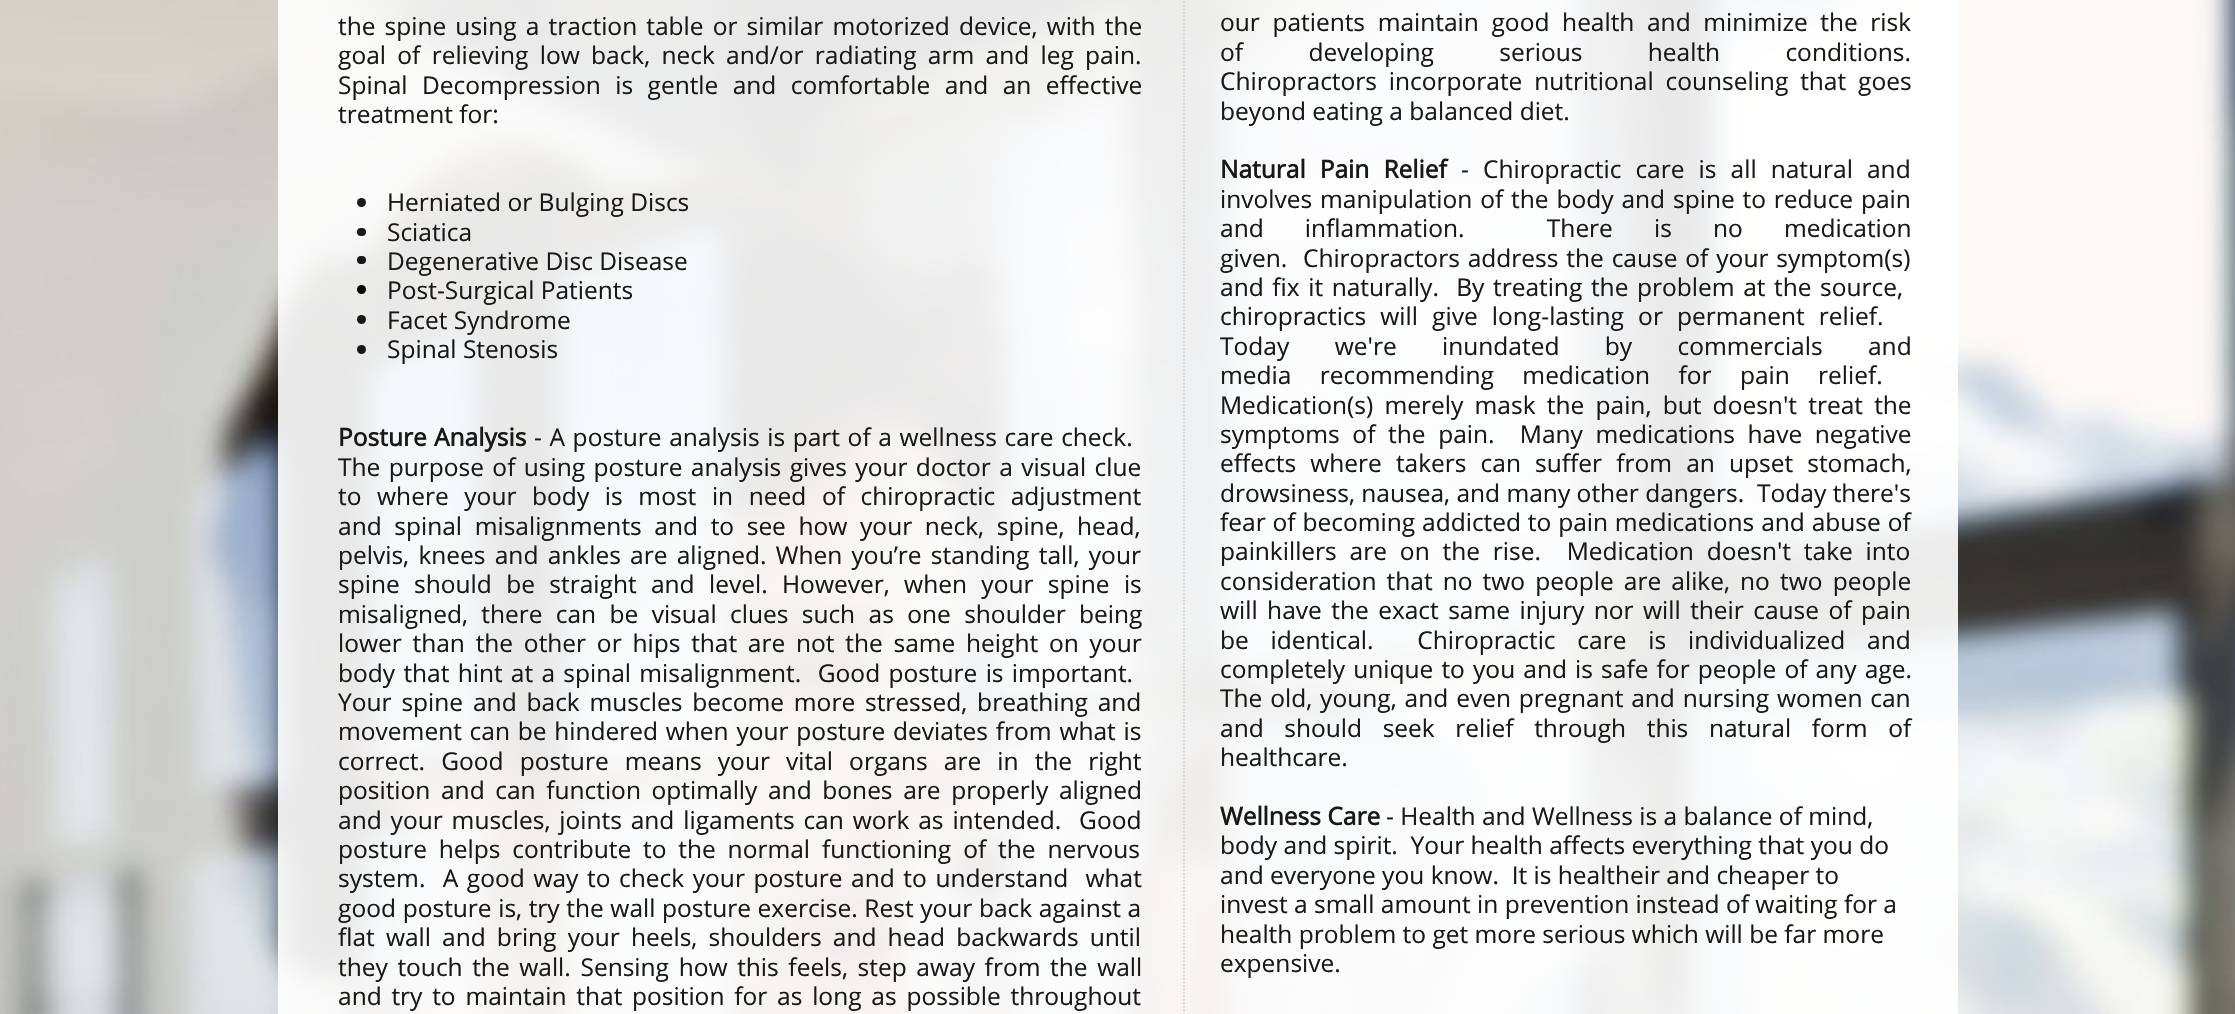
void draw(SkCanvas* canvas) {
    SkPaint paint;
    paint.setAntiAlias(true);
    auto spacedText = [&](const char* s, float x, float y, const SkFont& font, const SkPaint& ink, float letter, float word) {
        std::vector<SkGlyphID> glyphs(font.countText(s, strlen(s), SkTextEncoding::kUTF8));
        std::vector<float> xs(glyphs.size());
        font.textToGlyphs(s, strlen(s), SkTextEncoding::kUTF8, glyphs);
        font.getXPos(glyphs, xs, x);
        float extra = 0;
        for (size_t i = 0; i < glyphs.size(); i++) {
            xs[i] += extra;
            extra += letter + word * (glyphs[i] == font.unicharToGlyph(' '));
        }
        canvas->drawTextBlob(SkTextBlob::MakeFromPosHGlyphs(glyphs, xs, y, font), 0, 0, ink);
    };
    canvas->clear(0xFFFFFFFF);
    canvas->drawImageRect(SkImages::DeferredFromEncodedData(SkData::MakeFromFileName("img1.png")), SkRect::MakeXYWH(0, 0, 2235, 1014), SkSamplingOptions());
    paint.setColor(0xE6FFFFFF);
    canvas->drawRect(SkRect::MakeXYWH(278, 0, 1680, 1014), paint);
    SkFont font1(fontMgr->matchFamilyStyle("Open Sans", SkFontStyle::Normal()), 24.5f);
    font1.setSubpixel(true);
    paint.setColor(0xFF181817);
    spacedText("the spine using a traction table or similar motorized device, with the", 338, 35, font1, paint, 0, 2.75f);
    spacedText("goal of relieving low back, neck and/or radiating arm and leg pain.", 338, 64, font1, paint, 0, 4.9f);
    spacedText("Spinal Decompression is gentle and comfortable and an effective", 338, 94, font1, paint, 0, 8);
    canvas->drawString("treatment for:", 338, 123, font1, paint);
    paint.setColor(0xFF191919);
    canvas->drawCircle(361.5f, 202.5f, 4.5f, paint);
    paint.setColor(0xFF181817);
    canvas->drawString("Herniated or Bulging Discs", 387, 211, font1, paint);
    paint.setColor(0xFF191919);
    canvas->drawRoundRect(SkRect::MakeXYWH(357, 228, 9, 8), 4, 4, paint);
    paint.setColor(0xFF181817);
    canvas->drawString("Sciatica", 387, 241, font1, paint);
    paint.setColor(0xE6000000);
    canvas->drawRoundRect(SkRect::MakeXYWH(357, 256, 9, 8), 4, 4, paint);
    paint.setColor(0xFF181817);
    canvas->drawString("Degenerative Disc Disease", 387, 270, font1, paint);
    paint.setColor(0xFF040302);
    canvas->drawCircle(361.5f, 289.5f, 4.5f, paint);
    paint.setColor(0xFF181817);
    canvas->drawString("Post-Surgical Patients", 387, 299, font1, paint);
    paint.setColor(0xFF171717);
    canvas->drawCircle(361.5f, 319.5f, 4.5f, paint);
    paint.setColor(0xFF181817);
    canvas->drawString("Facet Syndrome", 387, 329, font1, paint);
    paint.setColor(0xFF171717);
    canvas->drawCircle(361.5f, 349.5f, 4.5f, paint);
    paint.setColor(0xFF181817);
    canvas->drawString("Spinal Stenosis", 387, 358, font1, paint);
    SkFont font2(fontMgr->matchFamilyStyle("Open Sans", SkFontStyle::Bold()), 24.5f);
    font2.setSubpixel(true);
    spacedText("Posture Analysis", 338, 446, font2, paint, 0, 1);
    spacedText("- A posture analysis is part of a wellness care check.", 534, 446, font1, paint, 0, 1.25f);
    spacedText("The purpose of using posture analysis gives your doctor a visual clue", 338, 476, font1, paint, 0, 2);
    spacedText("to where your body is most in need of chiropractic adjustment", 338, 505, font1, paint, 0, 9.25f);
    spacedText("and spinal misalignments and to see how your neck, spine, head,", 338, 535, font1, paint, 0, 6.25f);
    spacedText("pelvis, knees and ankles are aligned. When you’re standing tall, your", 338, 564, font1, paint, 0, 2.9f);
    spacedText("spine should be straight and level. However, when your spine is", 338, 593, font1, paint, 0, 8);
    spacedText("misaligned, there can be visual clues such as one shoulder being", 338, 623, font1, paint, 0, 7);
    spacedText("lower than the other or hips that are not the same height on your", 338, 652, font1, paint, 0, 4.4f);
    spacedText("body that hint at a spinal misalignment.  Good posture is important.", 338, 682, font1, paint, 0, 1.9f);
    spacedText("Your spine and back muscles become more stressed, breathing and", 338, 711, font1, paint, 0, 3.5f);
    spacedText("movement can be hindered when your posture deviates from what is", 338, 740, font1, paint, 0, 1.4f);
    spacedText("correct. Good posture means your vital organs are in the right", 338, 770, font1, paint, 0, 9.75f);
    spacedText("position and can function optimally and bones are properly aligned", 338, 799, font1, paint, 0, 4.25f);
    spacedText("and your muscles, joints and ligaments can work as intended.  Good", 338, 829, font1, paint, 0, 2.5f);
    spacedText("posture helps contribute to the normal functioning of the nervous", 338, 858, font1, paint, 0, 5.5f);
    spacedText("system.  A good way to check your posture and to understand  what", 338, 887, font1, paint, 0, 2.25f);
    spacedText("good posture is, try the wall posture exercise. Rest your back against a", 338, 917, font1, paint, 0, 0.25f);
    spacedText("flat wall and bring your heels, shoulders and head backwards until", 338, 946, font1, paint, 0, 4.75f);
    spacedText("they touch the wall. Sensing how this feels, step away from the wall", 338, 976, font1, paint, 0, 3.25f);
    spacedText("and try to maintain that position for as long as possible throughout", 338, 1005, font1, paint, 0, 3.4f);
    paint.setStyle(SkPaint::kStroke_Style);
    paint.setStrokeWidth(1.8f);
    paint.setColor(0xE6CCCCCC);
    paint.setPathEffect(SkDashPathEffect::Make({{1.75f, 1.75f}}, 0));
    canvas->drawPath(SkPathBuilder().moveTo(1184, -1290).lineTo(1184, 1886.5f).detach(), paint);
    paint.setPathEffect(nullptr);
    paint.setStyle(SkPaint::kFill_Style);
    paint.setColor(0xFF181817);
    spacedText("our patients maintain good health and minimize the risk", 1220, 31, font1, paint, 0, 6.25f);
    spacedText("of developing serious health conditions.", 1220, 61, font1, paint, 0, 59);
    spacedText("Chiropractors incorporate nutritional counseling that goes", 1220, 90, font1, paint, 0, 5.5f);
    canvas->drawString("beyond eating a balanced diet.", 1220, 120, font1, paint);
    spacedText("Natural Pain Relief", 1220, 178, font2, paint, 0, 7.75f);
    spacedText("- Chiropractic care is all natural and", 1461, 178, font1, paint, 0, 7.75f);
    spacedText("involves manipulation of the body and spine to reduce pain", 1220, 208, font1, paint, 0, 1.5f);
    spacedText("and inflammation.  There is no medication", 1220, 237, font1, paint, 0, 34.75f);
    spacedText("given.  Chiropractors address the cause of your symptom(s)", 1220, 267, font1, paint, 0, 1.5f);
    spacedText("and fix it naturally.  By treating the problem at the source,", 1220, 296, font1, paint, 0, 2.25f);
    spacedText("chiropractics will give long-lasting or permanent relief.", 1220, 325, font1, paint, 0, 7.75f);
    spacedText("Today we're inundated by commercials and", 1220, 355, font1, paint, 0, 39);
    spacedText("media recommending medication for pain relief.", 1220, 384, font1, paint, 0, 22);
    spacedText("Medication(s) merely mask the pain, but doesn't treat the", 1220, 414, font1, paint, 0, 4.9f);
    spacedText("symptoms of the pain.  Many medications have negative", 1220, 443, font1, paint, 0, 6.25f);
    spacedText("effects where takers can suffer from an upset stomach,", 1220, 472, font1, paint, 0, 7.75f);
    canvas->drawString("drowsiness, nausea, and many other dangers.  Today there's", 1220, 502, font1, paint);
    spacedText("fear of becoming addicted to pain medications and abuse of", 1220, 531, font1, paint, 0, 0.5f);
    spacedText("painkillers are on the rise.  Medication doesn't take into", 1220, 560, font1, paint, 0, 6.5f);
    spacedText("consideration that no two people are alike, no two people", 1220, 590, font1, paint, 0, 3.75f);
    spacedText("will have the exact same injury nor will their cause of pain", 1220, 619, font1, paint, 0, 3.1f);
    spacedText("be identical.  Chiropractic care is individualized and", 1220, 649, font1, paint, 0, 15.5f);
    spacedText("completely unique to you and is safe for people of any age.", 1220, 678, font1, paint, 0, 1.75f);
    spacedText("The old, young, and even pregnant and nursing women can", 1220, 707, font1, paint, 0, 1.5f);
    spacedText("and should seek relief through this natural form of", 1220, 737, font1, paint, 0, 14.25f);
    canvas->drawString("healthcare.", 1220, 766, font1, paint);
    canvas->drawString("Wellness Care", 1220, 825, font2, paint);
    canvas->drawString("- Health and Wellness is a balance of mind,", 1386, 825, font1, paint);
    canvas->drawString("body and spirit.  Your health affects everything that you do", 1220, 854, font1, paint);
    canvas->drawString("and everyone you know.  It is healtheir and cheaper to", 1220, 884, font1, paint);
    canvas->drawString("invest a small amount in prevention instead of waiting for a", 1220, 913, font1, paint);
    canvas->drawString("health problem to get more serious which will be far more", 1220, 943, font1, paint);
    canvas->drawString("expensive.", 1220, 972, font1, paint);
}
